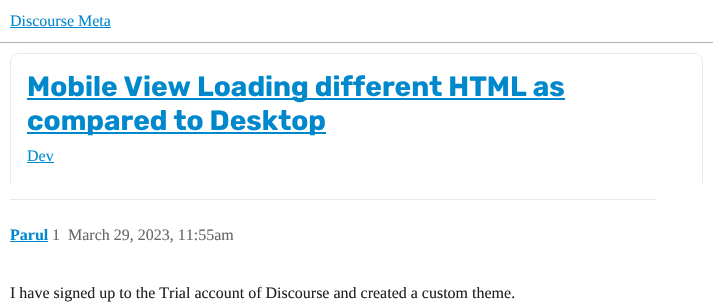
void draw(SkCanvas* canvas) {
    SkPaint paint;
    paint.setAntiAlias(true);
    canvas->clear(0xFFFFFFFF);
    paint.setColor(0xFFAFAFAF);
    canvas->drawRect(SkRect::MakeXYWH(0, 42, 713, 1), paint);
    SkFont font1(fontMgr->matchFamilyStyle("Liberation Serif", SkFontStyle::Normal()), 16);
    font1.setSubpixel(true);
    paint.setColor(0xFF0088CC);
    canvas->drawString("Discourse Meta", 10, 26, font1, paint);
    canvas->drawRect(SkRect::MakeXYWH(10, 27, 101, 1), paint);
    paint.setColor(0xFFE9E9E9);
    canvas->drawPath(SkPathBuilder(SkPathFillType::kEvenOdd).moveTo(18, 53).lineTo(695, 53).cubicTo(699, 53, 703, 57, 703, 61).lineTo(703, 183).lineTo(10, 183).lineTo(10, 61).cubicTo(10, 57, 14, 53, 18, 53).close().moveTo(18, 54).lineTo(695, 54).cubicTo(699, 54, 702, 57, 702, 61).lineTo(702, 183).lineTo(11, 183).lineTo(11, 61).cubicTo(11, 57, 14, 54, 18, 54).close().detach(), paint);
    paint.setColor(0xFF0088CC);
    canvas->drawRect(SkRect::MakeXYWH(27, 98, 538, 2), paint);
    SkFont font2(fontMgr->matchFamilyStyle("Rubik", SkFontStyle::Bold()), 28);
    font2.setSubpixel(true);
    canvas->drawString("Mobile View Loading different HTML as", 27, 96, font2, paint);
    canvas->drawRect(SkRect::MakeXYWH(27, 132, 299, 2), paint);
    canvas->drawString("compared to Desktop", 27, 130, font2, paint);
    canvas->drawString("Dev", 27, 161, font1, paint);
    canvas->drawRect(SkRect::MakeXYWH(27, 162, 27, 1), paint);
    paint.setColor(0xFFE9E9E9);
    canvas->drawRect(SkRect::MakeXYWH(10, 199, 646, 1), paint);
    SkFont font3(fontMgr->matchFamilyStyle("Liberation Serif", SkFontStyle::Bold()), 16);
    font3.setSubpixel(true);
    paint.setColor(0xFF0088CC);
    canvas->drawString("Parul", 10, 240, font3, paint);
    canvas->drawRect(SkRect::MakeXYWH(10, 241, 38, 1), paint);
    paint.setColor(0xFF666666);
    canvas->drawString("1", 52, 240, font1, paint);
    canvas->drawString("March 29, 2023, 11:55am", 68, 240, font1, paint);
    paint.setColor(0xFF222222);
    canvas->drawString("I have signed up to the Trial account of Discourse and created a custom theme.", 10, 298, font1, paint);
}
